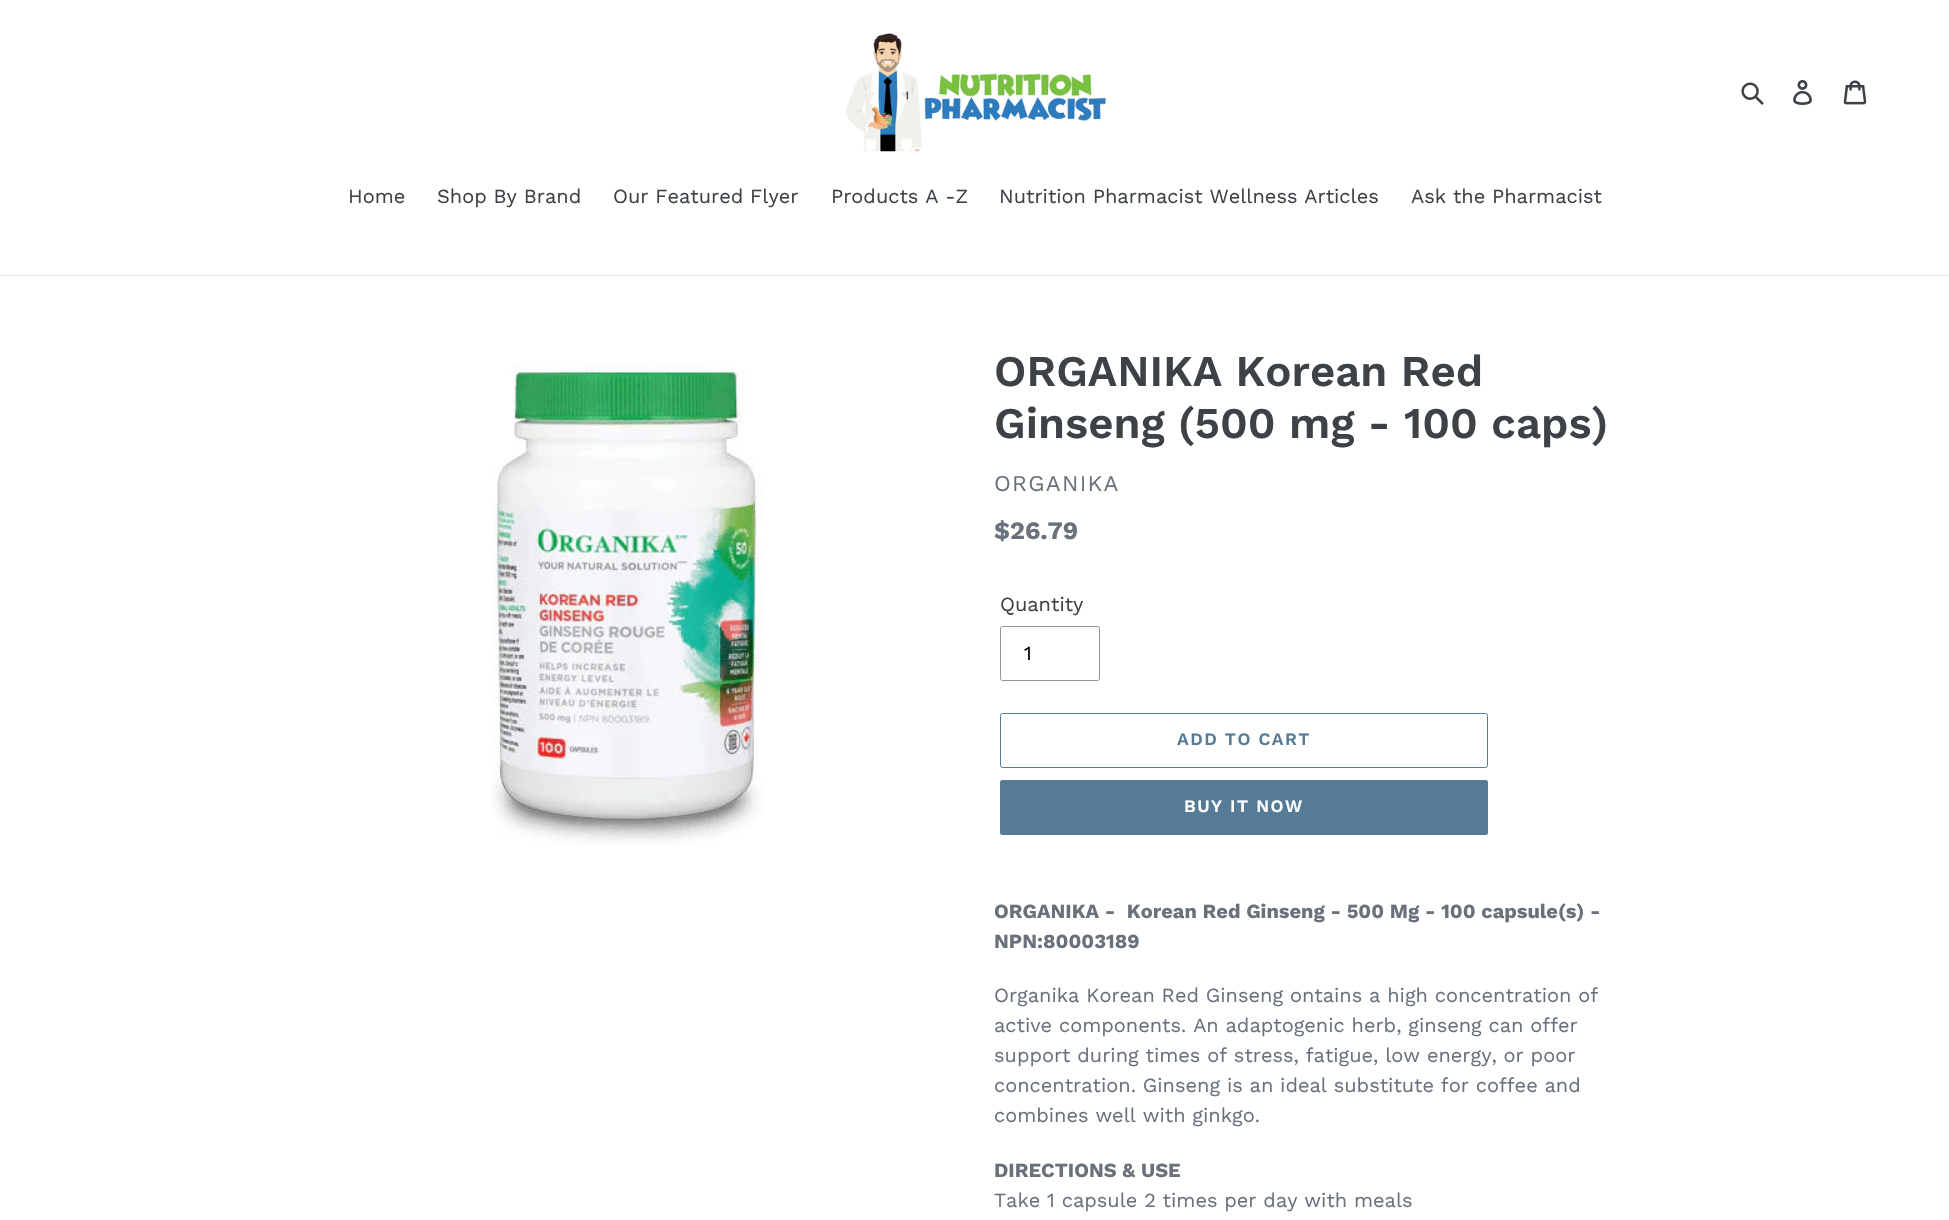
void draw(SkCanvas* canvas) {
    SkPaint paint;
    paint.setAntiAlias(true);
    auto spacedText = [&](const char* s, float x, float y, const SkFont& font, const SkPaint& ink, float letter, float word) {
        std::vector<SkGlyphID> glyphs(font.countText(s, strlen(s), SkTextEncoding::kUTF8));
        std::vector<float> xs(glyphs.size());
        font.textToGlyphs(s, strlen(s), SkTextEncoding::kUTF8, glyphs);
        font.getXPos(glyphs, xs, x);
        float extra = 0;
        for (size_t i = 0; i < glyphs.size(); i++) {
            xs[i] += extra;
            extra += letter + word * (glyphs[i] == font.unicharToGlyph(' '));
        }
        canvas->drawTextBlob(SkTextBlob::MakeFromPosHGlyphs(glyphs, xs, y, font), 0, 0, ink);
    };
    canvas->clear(0xFFFFFFFF);
    canvas->drawImageRect(SkImages::DeferredFromEncodedData(SkData::MakeFromFileName("img1.png")), SkRect::MakeXYWH(846, 32, 261, 120), SkSamplingOptions());
    canvas->drawImageRect(SkImages::DeferredFromEncodedData(SkData::MakeFromFileName("img2.png")), SkRect::MakeXYWH(1741, 82, 23, 23), SkSamplingOptions());
    canvas->drawImageRect(SkImages::DeferredFromEncodedData(SkData::MakeFromFileName("img3.png")), SkRect::MakeXYWH(1793, 80, 19, 25), SkSamplingOptions());
    canvas->drawImageRect(SkImages::DeferredFromEncodedData(SkData::MakeFromFileName("img4.png")), SkRect::MakeXYWH(1843, 80, 24, 25), SkSamplingOptions());
    paint.setColor(0xFFE8E9EB);
    canvas->drawRect(SkRect::MakeXYWH(0, 275, 1949, 1), paint);
    SkFont font1(fontMgr->matchFamilyStyle("Work Sans", SkFontStyle::Normal()), 20);
    font1.setSubpixel(true);
    paint.setColor(0xFF3D4246);
    canvas->drawString("Home", 348, 203, font1, paint);
    canvas->drawString("Shop By Brand", 437, 203, font1, paint);
    canvas->drawString("Our Featured Flyer", 613, 203, font1, paint);
    canvas->drawString("Products A -Z", 831, 203, font1, paint);
    canvas->drawString("Nutrition Pharmacist Wellness Articles", 999, 203, font1, paint);
    canvas->drawString("Ask the Pharmacist", 1411, 203, font1, paint);
    canvas->drawImageRect(SkImages::DeferredFromEncodedData(SkData::MakeFromFileName("img5.png")), SkRect::MakeXYWH(491, 365, 273, 480), SkSamplingOptions());
    SkFont font2(fontMgr->matchFamilyStyle("Work Sans", SkFontStyle(600, SkFontStyle::kNormal_Width, SkFontStyle::kUpright_Slant)), 43.75f);
    font2.setSubpixel(true);
    canvas->drawString("ORGANIKA Korean Red", 994, 386, font2, paint);
    canvas->drawString("Ginseng (500 mg - 100 caps)", 994, 438, font2, paint);
    SkFont font3(fontMgr->matchFamilyStyle("Work Sans", SkFontStyle::Normal()), 22.5f);
    font3.setSubpixel(true);
    paint.setColor(0xFF69727B);
    spacedText("ORGANIKA", 994, 491, font3, paint, 1.25f, 0);
    SkFont font4(fontMgr->matchFamilyStyle("Work Sans", SkFontStyle::Bold()), 25);
    font4.setSubpixel(true);
    canvas->drawString("$26.79", 994, 539, font4, paint);
    paint.setColor(0xFF3D4246);
    canvas->drawString("Quantity", 1000, 611, font1, paint);
    paint.setStyle(SkPaint::kStroke_Style);
    paint.setStrokeWidth(1);
    paint.setColor(0xFF949494);
    canvas->drawRoundRect(SkRect::MakeXYWH(1000.5f, 626.5f, 99, 54), 2, 2, paint);
    paint.setStyle(SkPaint::kFill_Style);
    paint.setColor(0xFF000000);
    canvas->drawString("1", 1024, 660, font1, paint);
    paint.setStyle(SkPaint::kStroke_Style);
    paint.setColor(0xFF557B97);
    canvas->drawRoundRect(SkRect::MakeXYWH(1000.5f, 713.5f, 487, 54), 2, 2, paint);
    SkFont font5(fontMgr->matchFamilyStyle("Work Sans", SkFontStyle(600, SkFontStyle::kNormal_Width, SkFontStyle::kUpright_Slant)), 17.5f);
    font5.setSubpixel(true);
    paint.setStyle(SkPaint::kFill_Style);
    spacedText("ADD TO CART", 1177, 745, font5, paint, 1.4f, 0);
    canvas->drawRoundRect(SkRect::MakeXYWH(1000, 780, 488, 55), 2.5f, 2.5f, paint);
    paint.setColor(0xFFFFFFFF);
    spacedText("BUY IT NOW", 1184, 812, font5, paint, 1.4f, 0);
    SkFont font6(fontMgr->matchFamilyStyle("Work Sans", SkFontStyle::Bold()), 20);
    font6.setSubpixel(true);
    paint.setColor(0xFF69727B);
    canvas->drawString("ORGANIKA -  Korean Red Ginseng - 500 Mg - 100 capsule(s) -", 994, 918, font6, paint);
    canvas->drawString("NPN:80003189", 994, 948, font6, paint);
    canvas->drawString("Organika Korean Red Ginseng ontains a high concentration of", 994, 1002, font1, paint);
    canvas->drawString("active components. An adaptogenic herb, ginseng can offer", 994, 1032, font1, paint);
    canvas->drawString("support during times of stress, fatigue, low energy, or poor", 994, 1062, font1, paint);
    canvas->drawString("concentration. Ginseng is an ideal substitute for coffee and", 994, 1092, font1, paint);
    canvas->drawString("combines well with ginkgo.", 994, 1122, font1, paint);
    canvas->drawString("DIRECTIONS & USE", 994, 1177, font6, paint);
    canvas->drawString("Take 1 capsule 2 times per day with meals", 994, 1207, font1, paint);
}
